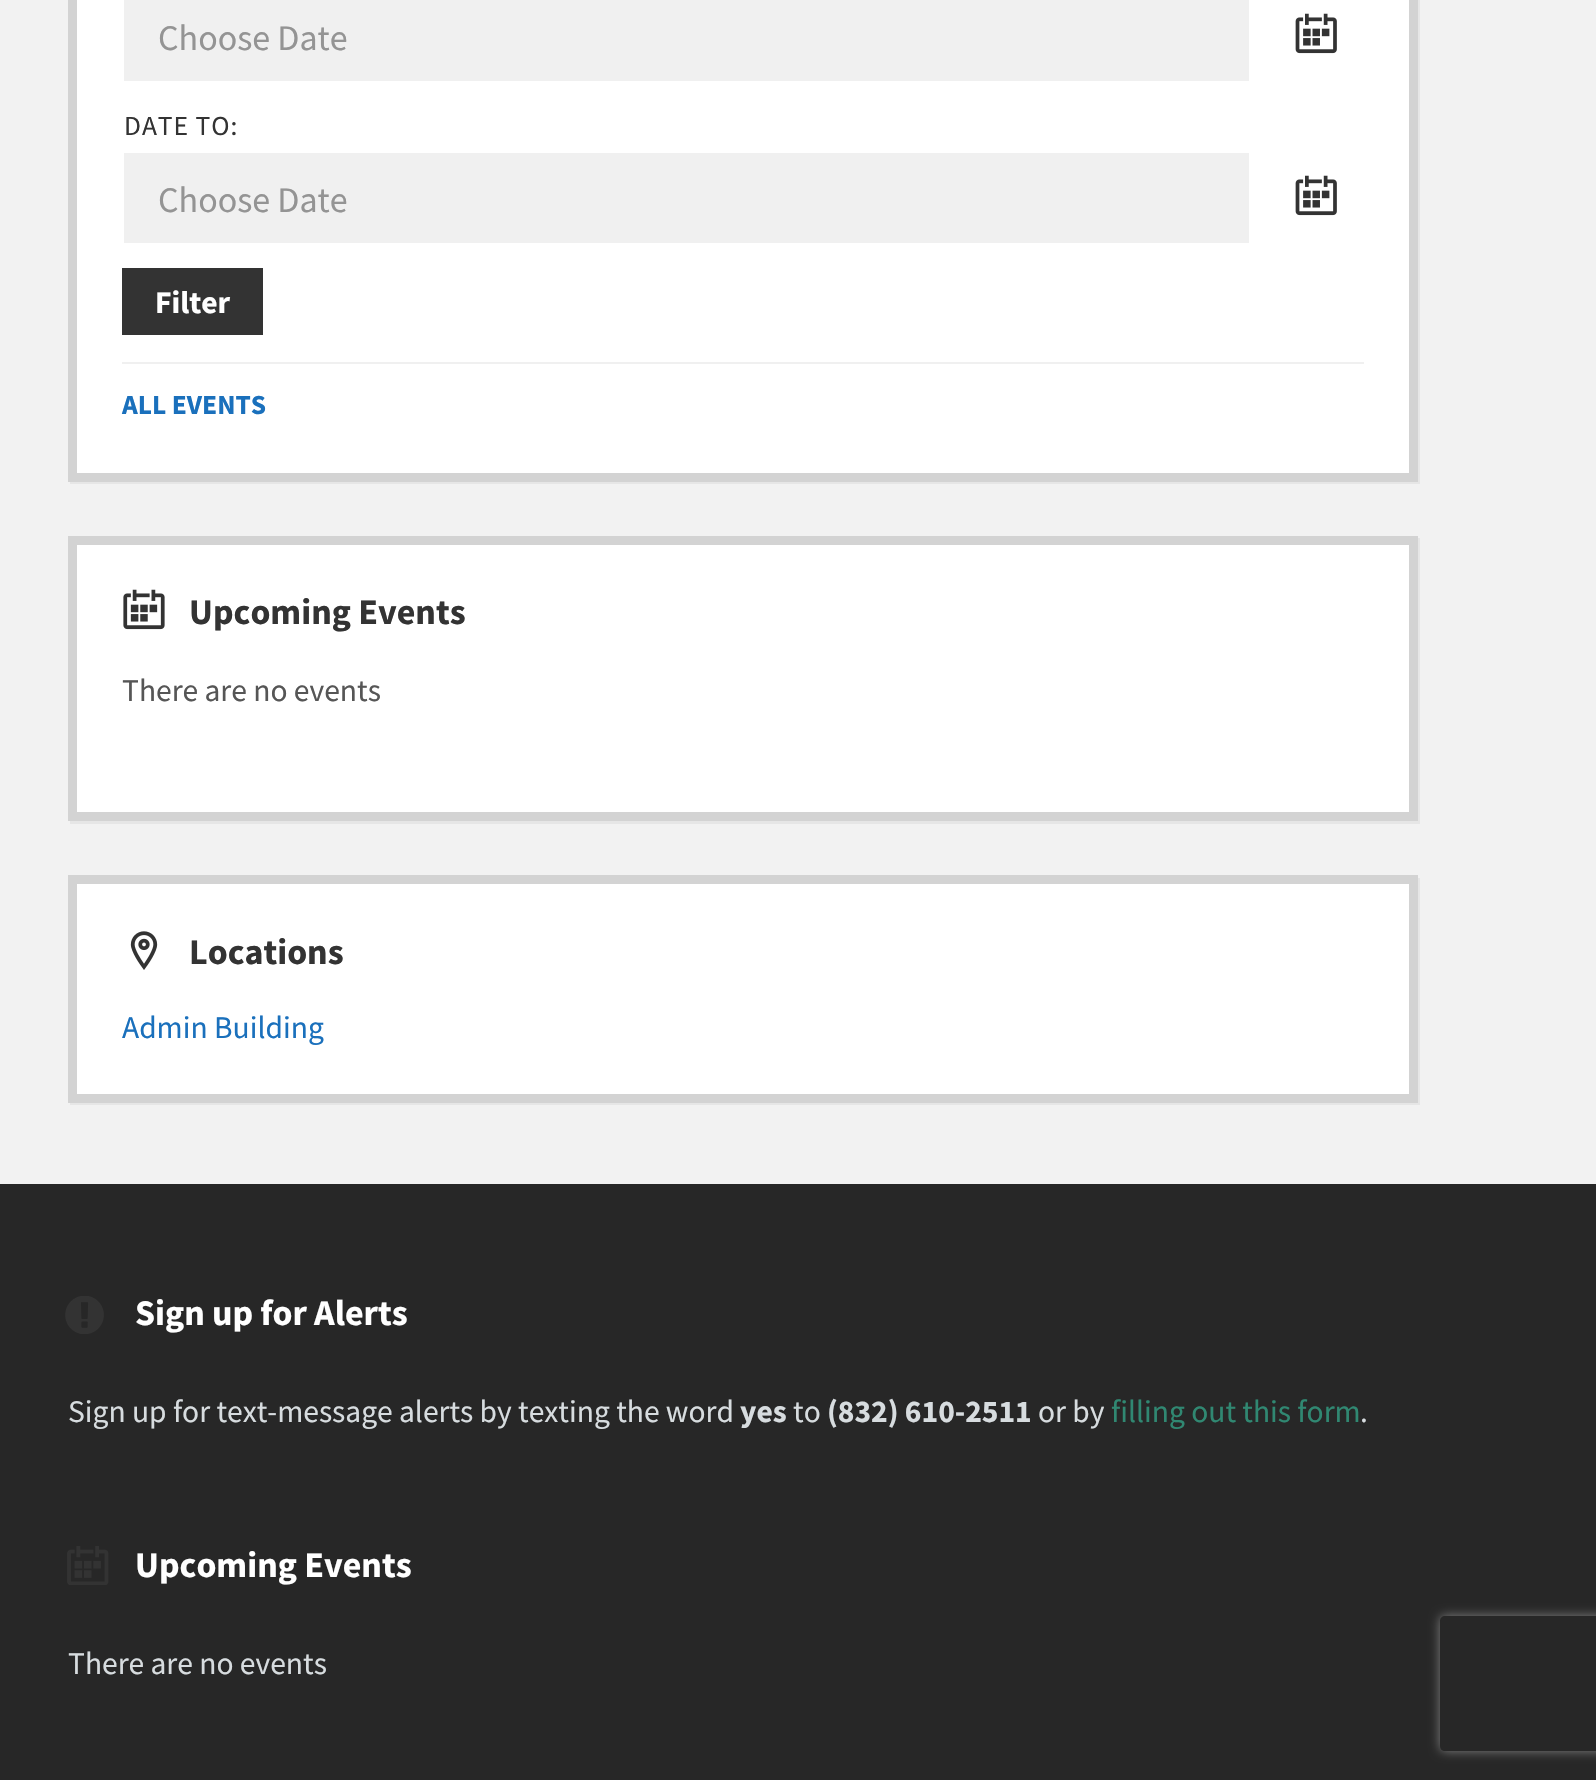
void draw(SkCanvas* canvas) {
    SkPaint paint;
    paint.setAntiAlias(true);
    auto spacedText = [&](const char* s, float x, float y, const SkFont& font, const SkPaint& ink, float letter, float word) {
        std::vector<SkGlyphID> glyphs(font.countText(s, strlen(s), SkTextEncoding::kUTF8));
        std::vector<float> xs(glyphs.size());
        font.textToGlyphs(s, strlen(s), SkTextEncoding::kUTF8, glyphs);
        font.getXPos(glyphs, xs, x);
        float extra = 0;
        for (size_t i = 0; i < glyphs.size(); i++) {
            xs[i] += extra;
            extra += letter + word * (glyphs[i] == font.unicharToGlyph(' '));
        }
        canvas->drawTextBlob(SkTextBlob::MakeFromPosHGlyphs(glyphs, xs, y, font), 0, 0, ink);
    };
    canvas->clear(0xFFF2F2F2);
    paint.setColor(0xFFE6E6E6);
    canvas->drawPath(SkPathBuilder().moveTo(70, 482).lineTo(70, 484).lineTo(1420, 484).lineTo(1420, -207).lineTo(1418, -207).lineTo(1418, 482).close().detach(), paint);
    paint.setColor(0xFFFFFFFF);
    canvas->drawRect(SkRect::MakeXYWH(72.5f, -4.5f, 1341, 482), paint);
    paint.setStyle(SkPaint::kStroke_Style);
    paint.setStrokeWidth(9);
    paint.setColor(0xFFD3D3D3);
    canvas->drawRect(SkRect::MakeXYWH(72.5f, -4.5f, 1341, 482), paint);
    paint.setStyle(SkPaint::kFill_Style);
    paint.setColor(0xFFF0F0F0);
    canvas->drawRect(SkRect::MakeXYWH(124, 0, 1125, 81), paint);
    SkFont font1(fontMgr->matchFamilyStyle("Source Sans Pro", SkFontStyle::Normal()), 36);
    font1.setSubpixel(true);
    paint.setColor(0xFF949494);
    canvas->drawString("Choose Date", 158, 50, font1, paint);
    canvas->drawImageRect(SkImages::DeferredFromEncodedData(SkData::MakeFromFileName("img1.png")), SkRect::MakeXYWH(1295, 13, 42, 41), SkSamplingOptions());
    SkFont font2(fontMgr->matchFamilyStyle("Source Sans Pro", SkFontStyle::Normal()), 27.5f);
    font2.setSubpixel(true);
    paint.setColor(0xFF333333);
    spacedText("DATE TO:", 124, 135, font2, paint, 1, 0);
    paint.setColor(0xFFF0F0F0);
    canvas->drawRect(SkRect::MakeXYWH(124, 153, 1125, 90), paint);
    paint.setColor(0xFF949494);
    canvas->drawString("Choose Date", 158, 212, font1, paint);
    canvas->drawImageRect(SkImages::DeferredFromEncodedData(SkData::MakeFromFileName("img1.png")), SkRect::MakeXYWH(1295, 175, 42, 41), SkSamplingOptions());
    paint.setColor(0xFF333333);
    canvas->drawRect(SkRect::MakeXYWH(122, 268, 141, 67), paint);
    SkFont font3(fontMgr->matchFamilyStyle("Source Sans Pro", SkFontStyle::Bold()), 31.5f);
    font3.setSubpixel(true);
    paint.setColor(0xFFFFFFFF);
    canvas->drawString("Filter", 155, 313, font3, paint);
    paint.setColor(0xFFF0F0F0);
    canvas->drawRect(SkRect::MakeXYWH(122, 362, 1242, 2), paint);
    SkFont font4(fontMgr->matchFamilyStyle("Source Sans Pro", SkFontStyle::Bold()), 27.5f);
    font4.setSubpixel(true);
    paint.setColor(0xFF1A70BC);
    canvas->drawString("ALL EVENTS", 122, 414, font4, paint);
    paint.setColor(0xFFE6E6E6);
    canvas->drawPath(SkPathBuilder().moveTo(70, 821).lineTo(70, 824).lineTo(1420, 824).lineTo(1420, 538).lineTo(1418, 538).lineTo(1418, 821).close().detach(), paint);
    paint.setColor(0xFFFFFFFF);
    canvas->drawRect(SkRect::MakeXYWH(72.5f, 540.5f, 1341, 276), paint);
    paint.setStyle(SkPaint::kStroke_Style);
    paint.setColor(0xFFD3D3D3);
    canvas->drawRect(SkRect::MakeXYWH(72.5f, 540.5f, 1341, 276), paint);
    canvas->drawImageRect(SkImages::DeferredFromEncodedData(SkData::MakeFromFileName("img2.png")), SkRect::MakeXYWH(123, 589, 42, 41), SkSamplingOptions());
    SkFont font5(fontMgr->matchFamilyStyle("Source Sans Pro", SkFontStyle::Bold()), 36);
    font5.setSubpixel(true);
    paint.setStyle(SkPaint::kFill_Style);
    paint.setColor(0xFF333333);
    canvas->drawString("Upcoming Events", 189, 624, font5, paint);
    SkFont font6(fontMgr->matchFamilyStyle("Source Sans Pro", SkFontStyle::Normal()), 31.5f);
    font6.setSubpixel(true);
    paint.setColor(0xFF565656);
    canvas->drawString("There are no events", 122, 701, font6, paint);
    paint.setColor(0xFFE6E6E6);
    canvas->drawPath(SkPathBuilder().moveTo(70, 1102).lineTo(70, 1105).lineTo(1420, 1105).lineTo(1420, 878).lineTo(1418, 878).lineTo(1418, 1102).close().detach(), paint);
    paint.setColor(0xFFFFFFFF);
    canvas->drawRect(SkRect::MakeXYWH(72.5f, 879.5f, 1341, 219), paint);
    paint.setStyle(SkPaint::kStroke_Style);
    paint.setColor(0xFFD3D3D3);
    canvas->drawRect(SkRect::MakeXYWH(72.5f, 879.5f, 1341, 219), paint);
    canvas->drawImageRect(SkImages::DeferredFromEncodedData(SkData::MakeFromFileName("img3.png")), SkRect::MakeXYWH(130, 931, 28, 39), SkSamplingOptions());
    paint.setStyle(SkPaint::kFill_Style);
    paint.setColor(0xFF333333);
    canvas->drawString("Locations", 189, 964, font5, paint);
    paint.setColor(0xFF1A70BC);
    canvas->drawString("Admin Building", 122, 1038, font6, paint);
    paint.setColor(0xFF272727);
    canvas->drawRect(SkRect::MakeXYWH(0, 1184, 1596, 596), paint);
    canvas->drawImageRect(SkImages::DeferredFromEncodedData(SkData::MakeFromFileName("img4.png")), SkRect::MakeXYWH(65, 1296, 39, 38), SkSamplingOptions());
    paint.setColor(0xFFFFFFFF);
    canvas->drawString("Sign up for Alerts", 135, 1325, font5, paint);
    paint.setColor(0xFFD7DCDF);
    canvas->drawString("Sign up for text-message alerts by texting the word", 68, 1422, font6, paint);
    canvas->drawString("yes", 740, 1422, font3, paint);
    canvas->drawString("to", 793, 1422, font6, paint);
    canvas->drawString("(832) 610-2511", 827, 1422, font3, paint);
    canvas->drawString("or by", 1038, 1422, font6, paint);
    paint.setColor(0xFF308872);
    canvas->drawString("filling out this form", 1111, 1422, font6, paint);
    paint.setColor(0xFFD7DCDF);
    canvas->drawString(".", 1360, 1422, font6, paint);
    canvas->drawImageRect(SkImages::DeferredFromEncodedData(SkData::MakeFromFileName("img5.png")), SkRect::MakeXYWH(67, 1546, 42, 39), SkSamplingOptions());
    paint.setColor(0xFFFFFFFF);
    canvas->drawString("Upcoming Events", 135, 1577, font5, paint);
    paint.setColor(0xFFD7DCDF);
    canvas->drawString("There are no events", 68, 1674, font6, paint);
    canvas->save();
    canvas->clipPath(SkPathBuilder(SkPathFillType::kEvenOdd).moveTo(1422, 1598).lineTo(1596, 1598).lineTo(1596, 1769).lineTo(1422, 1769).close().moveTo(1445, 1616).lineTo(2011, 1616).cubicTo(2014, 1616, 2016, 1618, 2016, 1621).lineTo(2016, 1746).cubicTo(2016, 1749, 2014, 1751, 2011, 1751).lineTo(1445, 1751).cubicTo(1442, 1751, 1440, 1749, 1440, 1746).lineTo(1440, 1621).cubicTo(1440, 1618, 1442, 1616, 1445, 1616).close().detach(), true);
    paint.setColor(0xFF808080);
    paint.setMaskFilter(SkMaskFilter::MakeBlur(kNormal_SkBlurStyle, 5.5f));
    canvas->drawRoundRect(SkRect::MakeXYWH(1440, 1616, 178, 135), 5, 5, paint);
    paint.setMaskFilter(nullptr);
    canvas->restore();
}
